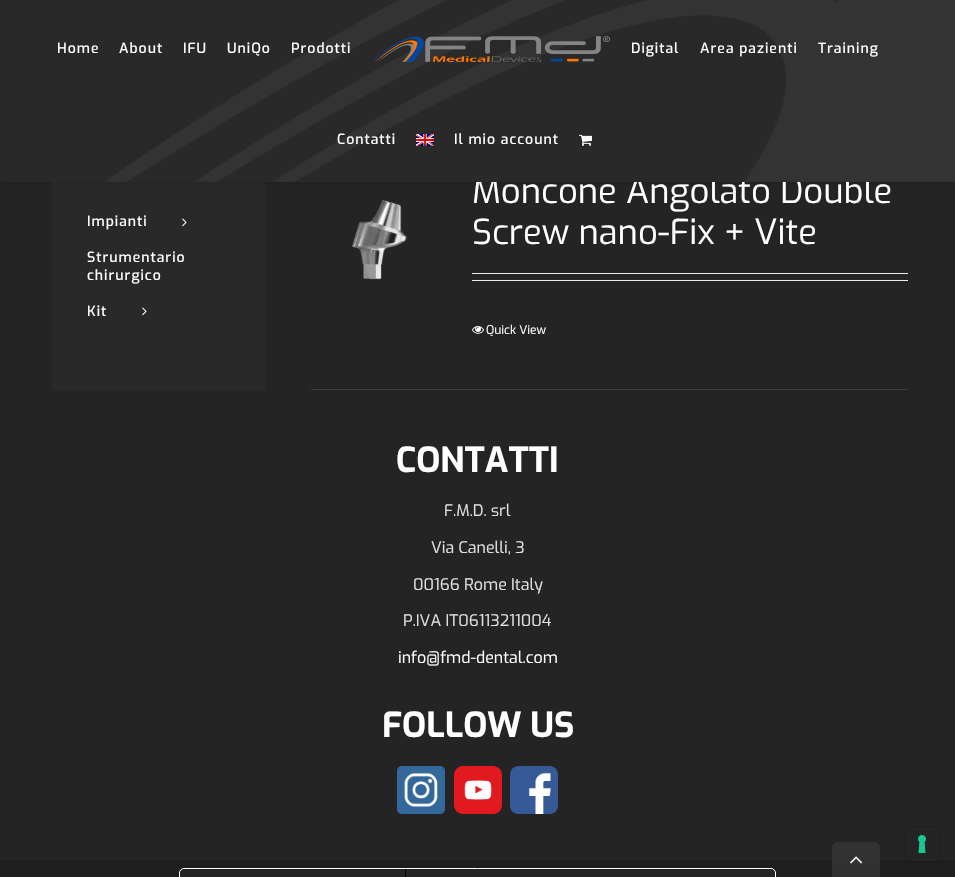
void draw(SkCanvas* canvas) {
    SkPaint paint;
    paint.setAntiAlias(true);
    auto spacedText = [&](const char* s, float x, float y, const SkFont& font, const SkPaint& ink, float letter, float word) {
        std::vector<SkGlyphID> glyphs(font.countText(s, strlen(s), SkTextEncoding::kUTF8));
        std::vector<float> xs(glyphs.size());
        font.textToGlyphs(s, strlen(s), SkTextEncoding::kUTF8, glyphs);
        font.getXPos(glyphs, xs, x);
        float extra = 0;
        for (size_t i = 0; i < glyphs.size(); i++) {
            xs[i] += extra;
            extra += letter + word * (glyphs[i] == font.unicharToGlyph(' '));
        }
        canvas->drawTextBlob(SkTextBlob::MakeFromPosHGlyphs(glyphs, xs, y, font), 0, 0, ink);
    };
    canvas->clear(0xFF1E1E1E);
    paint.setColor(0xFF242424);
    canvas->drawRect(SkRect::MakeXYWH(0, 182, 955, 678), paint);
    paint.setColor(0xFF29292A);
    canvas->drawRect(SkRect::MakeXYWH(52, 182, 213, 208), paint);
    paint.setColor(0x1F000000);
    paint.setMaskFilter(SkMaskFilter::MakeBlur(kNormal_SkBlurStyle, 1.5f));
    canvas->drawRect(SkRect::MakeXYWH(0, 1, 955, 182), paint);
    paint.setMaskFilter(nullptr);
    SkFont font1(fontMgr->matchFamilyStyle("Exo", SkFontStyle::Normal()), 34.5f);
    font1.setSubpixel(true);
    paint.setColor(0xFFFFFFFF);
    canvas->drawString("Moncone Angolato Double", 472, 203, font1, paint);
    paint.setColor(0xFF29292A);
    canvas->drawRect(SkRect::MakeXYWH(0, 0, 955, 182), paint);
    canvas->drawImageRect(SkImages::DeferredFromEncodedData(SkData::MakeFromFileName("img1.png")), SkRect::MakeXYWH(104, 0, 851, 182), SkSamplingOptions());
    SkFont font2(fontMgr->matchFamilyStyle("Exo", SkFontStyle(500, SkFontStyle::kNormal_Width, SkFontStyle::kUpright_Slant)), 14);
    font2.setSubpixel(true);
    paint.setColor(0xFFFFFFFF);
    spacedText("Home", 57, 53, font2, paint, 1, 0);
    spacedText("About", 119, 53, font2, paint, 1, 0);
    spacedText("IFU", 183, 53, font2, paint, 1, 0);
    spacedText("UniQo", 227, 53, font2, paint, 1, 0);
    spacedText("Prodotti", 291, 53, font2, paint, 1, 0);
    canvas->drawImageRect(SkImages::DeferredFromEncodedData(SkData::MakeFromFileName("img2.png")), SkRect::MakeXYWH(372, 36, 238, 26), SkSamplingOptions());
    spacedText("Digital", 631, 53, font2, paint, 1, 0);
    spacedText("Area pazienti", 700, 53, font2, paint, 1, 0);
    spacedText("Training", 818, 53, font2, paint, 1, 0);
    spacedText("Contatti", 337, 144, font2, paint, 1, 0);
    canvas->drawImageRect(SkImages::DeferredFromEncodedData(SkData::MakeFromFileName("img3.png")), SkRect::MakeXYWH(416, 134, 18, 12), SkSamplingOptions());
    spacedText("Il mio account", 454, 144, font2, paint, 1, 0);
    canvas->drawImageRect(SkImages::DeferredFromEncodedData(SkData::MakeFromFileName("img4.png")), SkRect::MakeXYWH(579, 134, 13, 12), SkSamplingOptions());
    spacedText("Impianti", 87, 226, font2, paint, 1, 0);
    canvas->drawImageRect(SkImages::DeferredFromEncodedData(SkData::MakeFromFileName("img5.png")), SkRect::MakeXYWH(182, 218, 5, 9), SkSamplingOptions());
    spacedText("Strumentario", 87, 262, font2, paint, 1, 0);
    spacedText("chirurgico", 87, 280, font2, paint, 1, 0);
    spacedText("Kit", 87, 316, font2, paint, 1, 0);
    canvas->drawImageRect(SkImages::DeferredFromEncodedData(SkData::MakeFromFileName("img5.png")), SkRect::MakeXYWH(142, 307, 5, 9), SkSamplingOptions());
    paint.setColor(0xFF3E3E3E);
    canvas->drawRect(SkRect::MakeXYWH(311, 389, 597, 1), paint);
    canvas->drawImageRect(SkImages::DeferredFromEncodedData(SkData::MakeFromFileName("img6.png")), SkRect::MakeXYWH(352, 199, 55, 81), SkSamplingOptions());
    paint.setColor(0xFFFFFFFF);
    canvas->drawString("Screw nano-Fix + Vite", 472, 244, font1, paint);
    paint.setColor(0xFFEBEAEA);
    canvas->drawRect(SkRect::MakeXYWH(472, 273, 436, 1), paint);
    canvas->drawRect(SkRect::MakeXYWH(472, 280, 436, 1), paint);
    canvas->drawImageRect(SkImages::DeferredFromEncodedData(SkData::MakeFromFileName("img7.png")), SkRect::MakeXYWH(472, 326, 12, 8), SkSamplingOptions());
    SkFont font3(fontMgr->matchFamilyStyle("Exo", SkFontStyle::Normal()), 12);
    font3.setSubpixel(true);
    paint.setColor(0xFFFFFFFF);
    canvas->drawString("Quick View", 486, 334, font3, paint);
    SkFont font4(fontMgr->matchFamilyStyle("Exo", SkFontStyle::Bold()), 34.5f);
    font4.setSubpixel(true);
    canvas->drawString("CONTATTI", 396, 472, font4, paint);
    SkFont font5(fontMgr->matchFamilyStyle("Exo", SkFontStyle::Normal()), 16);
    font5.setSubpixel(true);
    paint.setColor(0xFFE0E0E0);
    canvas->drawString("F.M.D. srl", 444, 516, font5, paint);
    canvas->drawString("Via Canelli, 3", 431, 553, font5, paint);
    canvas->drawString("00166 Rome Italy", 413, 590, font5, paint);
    canvas->drawString("P.IVA IT06113211004", 403, 626, font5, paint);
    paint.setColor(0xFFFFFFFF);
    canvas->drawString("info@fmd-dental.com", 398, 663, font5, paint);
    canvas->drawString("FOLLOW US", 382, 737, font4, paint);
    canvas->drawImageRect(SkImages::DeferredFromEncodedData(SkData::MakeFromFileName("img8.png")), SkRect::MakeXYWH(397, 766, 48, 48), SkSamplingOptions());
    canvas->drawImageRect(SkImages::DeferredFromEncodedData(SkData::MakeFromFileName("img9.png")), SkRect::MakeXYWH(454, 766, 48, 48), SkSamplingOptions());
    canvas->drawImageRect(SkImages::DeferredFromEncodedData(SkData::MakeFromFileName("img10.png")), SkRect::MakeXYWH(510, 766, 48, 48), SkSamplingOptions());
    paint.setColor(0xFF242424);
    canvas->drawRoundRect(SkRect::MakeXYWH(179.5f, 868.5f, 596, 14), 4.5f, 4.5f, paint);
    paint.setStyle(SkPaint::kStroke_Style);
    paint.setStrokeWidth(1);
    paint.setColor(0xFFFFFFFF);
    canvas->drawRoundRect(SkRect::MakeXYWH(179.5f, 868.5f, 596, 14), 4.5f, 4.5f, paint);
    paint.setStyle(SkPaint::kFill_Style);
    paint.setColor(0xFF000000);
    canvas->drawRect(SkRect::MakeXYWH(405, 869, 1, 8), paint);
    paint.setColor(0xE6333333);
    canvas->drawPath(SkPathBuilder().moveTo(838, 842).lineTo(874, 842).cubicTo(877.5f, 842, 880, 844.5f, 880, 848).lineTo(880, 877).lineTo(832, 877).lineTo(832, 848).cubicTo(832, 844.5f, 834.5f, 842, 838, 842).close().detach(), paint);
    canvas->drawImageRect(SkImages::DeferredFromEncodedData(SkData::MakeFromFileName("img11.png")), SkRect::MakeXYWH(850, 856, 13, 8), SkSamplingOptions());
    paint.setStyle(SkPaint::kStroke_Style);
    paint.setColor(0x26000000);
    canvas->drawRoundRect(SkRect::MakeXYWH(904.5f, 826.5f, 35, 35), 4.5f, 4.5f, paint);
    paint.setStyle(SkPaint::kFill_Style);
    paint.setColor(0xFF242424);
    canvas->drawRoundRect(SkRect::MakeXYWH(905, 827, 34, 34), 4, 4, paint);
    canvas->drawImageRect(SkImages::DeferredFromEncodedData(SkData::MakeFromFileName("img12.png")), SkRect::MakeXYWH(918, 835, 8, 18), SkSamplingOptions());
}
